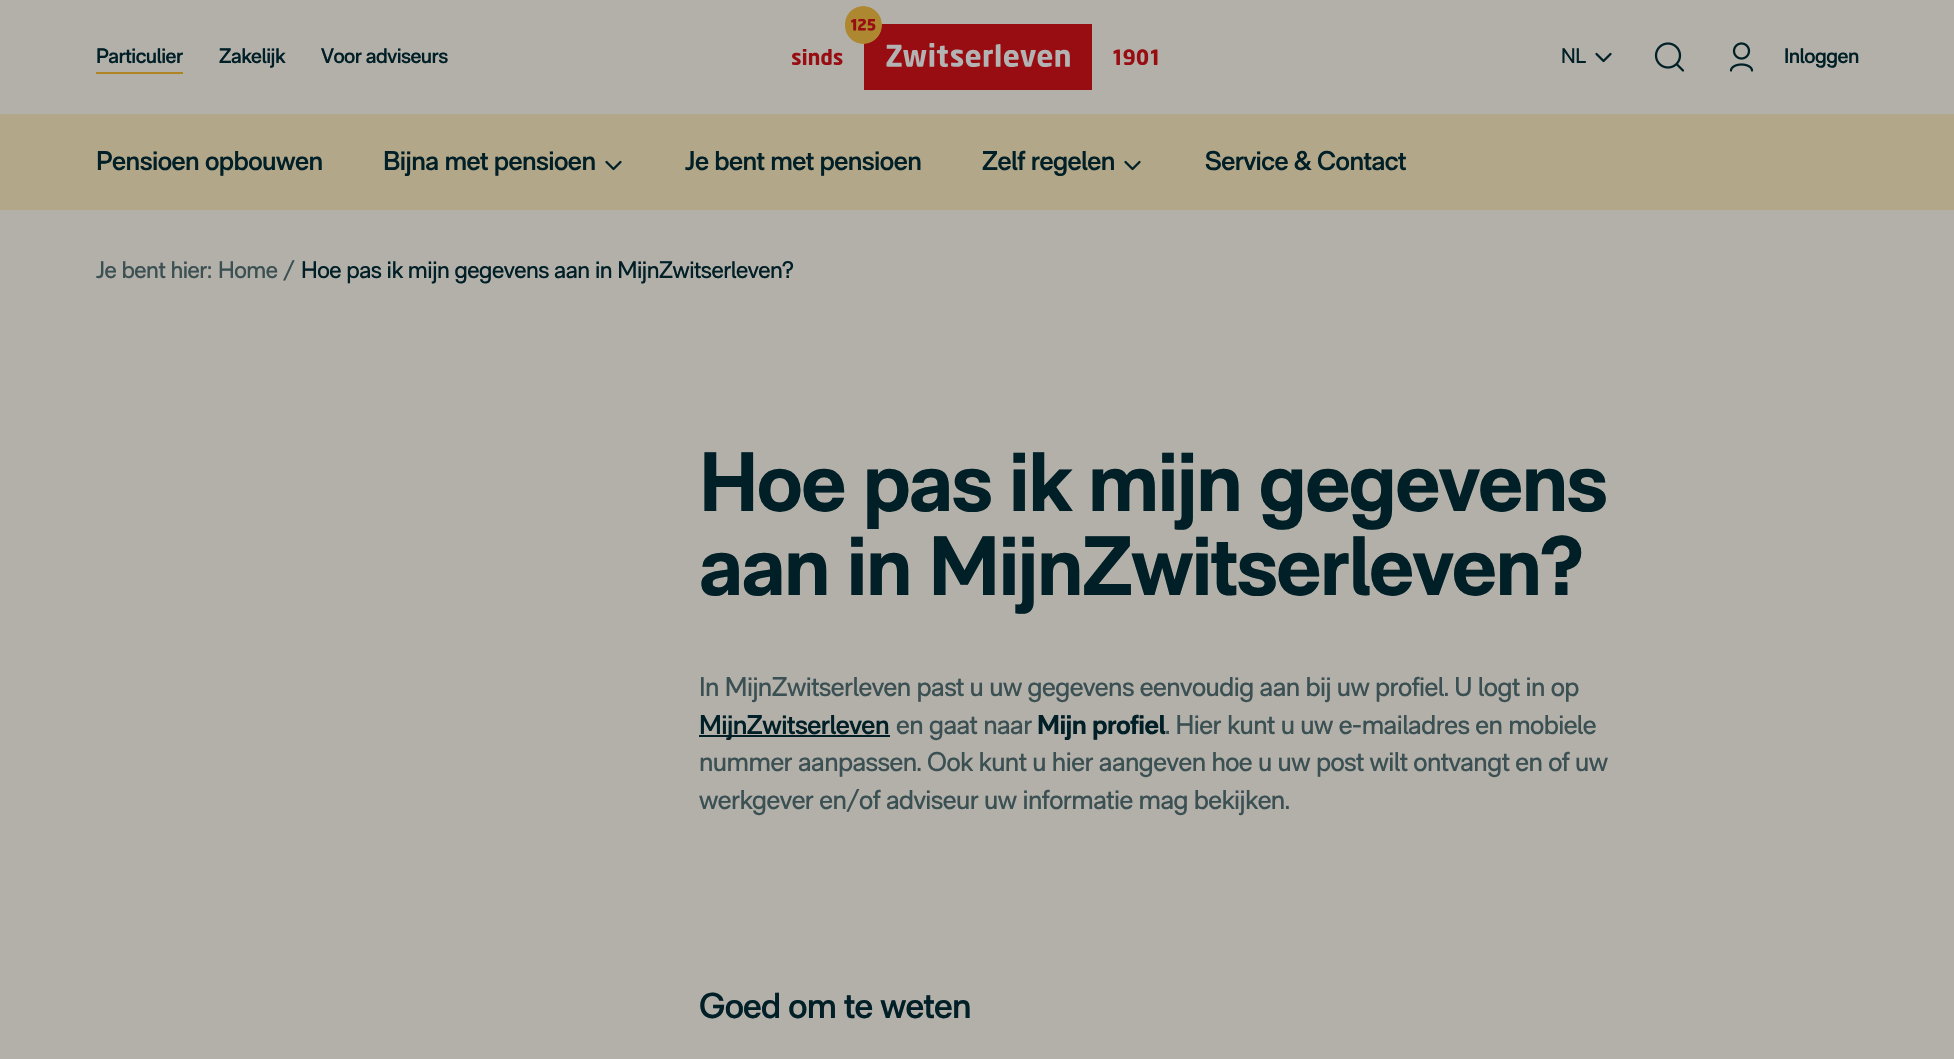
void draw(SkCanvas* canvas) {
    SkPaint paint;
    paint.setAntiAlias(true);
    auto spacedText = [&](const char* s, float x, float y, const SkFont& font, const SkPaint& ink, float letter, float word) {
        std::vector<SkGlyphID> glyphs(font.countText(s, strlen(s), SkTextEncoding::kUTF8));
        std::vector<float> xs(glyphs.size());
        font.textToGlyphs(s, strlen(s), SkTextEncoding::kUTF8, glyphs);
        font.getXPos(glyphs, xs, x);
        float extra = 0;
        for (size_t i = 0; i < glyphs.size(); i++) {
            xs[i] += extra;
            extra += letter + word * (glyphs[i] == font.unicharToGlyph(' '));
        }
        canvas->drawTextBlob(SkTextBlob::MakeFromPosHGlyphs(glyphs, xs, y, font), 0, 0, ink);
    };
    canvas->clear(0xFFB3AFA9);
    canvas->drawImageRect(SkImages::DeferredFromEncodedData(SkData::MakeFromFileName("img2.png")), SkRect::MakeXYWH(792, 24, 366, 66), SkSamplingOptions());
    canvas->drawImageRect(SkImages::DeferredFromEncodedData(SkData::MakeFromFileName("img1.png")), SkRect::MakeXYWH(845, 6, 37, 38), SkSamplingOptions());
    SkFont font1(fontMgr->matchFamilyStyle("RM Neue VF", SkFontStyle(600, SkFontStyle::kNormal_Width, SkFontStyle::kUpright_Slant)), 21);
    font1.setSubpixel(true);
    paint.setColor(0xFF001F26);
    spacedText("Particulier", 96, 63, font1, paint, -0.55f, 0);
    paint.setColor(0xFFB08422);
    canvas->drawRect(SkRect::MakeXYWH(96, 72, 87, 2), paint);
    paint.setColor(0xFF001F26);
    spacedText("Zakelijk", 219, 63, font1, paint, -0.55f, 0);
    spacedText("Voor adviseurs", 321, 63, font1, paint, -0.55f, 0);
    SkFont font2(fontMgr->matchFamilyStyle("RM Neue VF", SkFontStyle::Normal()), 21);
    font2.setSubpixel(true);
    spacedText("NL", 1561, 63, font2, paint, -0.55f, 0);
    canvas->drawImageRect(SkImages::DeferredFromEncodedData(SkData::MakeFromFileName("img3.png")), SkRect::MakeXYWH(1595, 52, 17, 11), SkSamplingOptions());
    canvas->drawImageRect(SkImages::DeferredFromEncodedData(SkData::MakeFromFileName("img4.png")), SkRect::MakeXYWH(1654, 42, 31, 30), SkSamplingOptions());
    canvas->drawImageRect(SkImages::DeferredFromEncodedData(SkData::MakeFromFileName("img5.png")), SkRect::MakeXYWH(1729, 42, 25, 30), SkSamplingOptions());
    spacedText("Inloggen", 1784, 63, font1, paint, -0.55f, 0);
    paint.setColor(0xFFB3A78A);
    canvas->drawRect(SkRect::MakeXYWH(0, 114, 1954, 96), paint);
    SkFont font3(fontMgr->matchFamilyStyle("RM Neue VF", SkFontStyle(600, SkFontStyle::kNormal_Width, SkFontStyle::kUpright_Slant)), 27);
    font3.setSubpixel(true);
    paint.setColor(0xFF001F26);
    spacedText("Pensioen opbouwen", 96, 170, font3, paint, -0.55f, 0);
    spacedText("Bijna met pensioen", 383, 170, font3, paint, -0.55f, 0);
    canvas->drawImageRect(SkImages::DeferredFromEncodedData(SkData::MakeFromFileName("img6.png")), SkRect::MakeXYWH(605, 160, 17, 11), SkSamplingOptions());
    spacedText("Je bent met pensioen", 685, 170, font3, paint, -0.55f, 0);
    spacedText("Zelf regelen", 982, 170, font3, paint, -0.55f, 0);
    canvas->drawImageRect(SkImages::DeferredFromEncodedData(SkData::MakeFromFileName("img6.png")), SkRect::MakeXYWH(1124, 160, 17, 11), SkSamplingOptions());
    spacedText("Service & Contact", 1205, 170, font3, paint, -0.55f, 0);
    SkFont font4(fontMgr->matchFamilyStyle("RM Neue VF", SkFontStyle::Normal()), 24);
    font4.setSubpixel(true);
    paint.setColor(0xFF3B5053);
    spacedText("Je bent hier:", 96, 278, font4, paint, -0.5f, 0);
    spacedText("Home", 218, 278, font4, paint, -0.5f, 0);
    spacedText("/", 283, 278, font4, paint, -0.5f, 0);
    paint.setColor(0xFF001F26);
    spacedText("Hoe pas ik mijn gegevens aan in MijnZwitserleven?", 301, 278, font4, paint, -0.5f, 0);
    SkFont font5(fontMgr->matchFamilyStyle("RM Neue VF", SkFontStyle::Bold()), 84);
    font5.setSubpixel(true);
    spacedText("Hoe pas ik mijn gegevens", 699, 511, font5, paint, -1.7f, 0);
    spacedText("aan in MijnZwitserleven?", 699, 595, font5, paint, -1.7f, 0);
    SkFont font6(fontMgr->matchFamilyStyle("RM Neue VF", SkFontStyle::Normal()), 27);
    font6.setSubpixel(true);
    paint.setColor(0xFF3B5053);
    spacedText("In MijnZwitserleven past u uw gegevens eenvoudig aan bij uw profiel. U logt in op", 699, 696, font6, paint, -0.55f, 0);
    paint.setColor(0xFF001F26);
    canvas->drawRect(SkRect::MakeXYWH(699, 735, 191, 2), paint);
    spacedText("MijnZwitserleven", 699, 734, font3, paint, -0.55f, 0);
    paint.setColor(0xFF3B5053);
    spacedText("en gaat naar", 896, 734, font6, paint, -0.55f, 0);
    SkFont font7(fontMgr->matchFamilyStyle("RM Neue VF", SkFontStyle::Bold()), 27);
    font7.setSubpixel(true);
    paint.setColor(0xFF001F26);
    spacedText("Mijn profiel", 1037, 734, font7, paint, -0.55f, 0);
    paint.setColor(0xFF3B5053);
    spacedText(". Hier kunt u uw e-mailadres en mobiele", 1165, 734, font6, paint, -0.55f, 0);
    spacedText("nummer aanpassen. Ook kunt u hier aangeven hoe u uw post wilt ontvangt en of uw", 699, 771, font6, paint, -0.55f, 0);
    spacedText("werkgever en/of adviseur uw informatie mag bekijken.", 699, 809, font6, paint, -0.55f, 0);
    SkFont font8(fontMgr->matchFamilyStyle("RM Neue VF", SkFontStyle(600, SkFontStyle::kNormal_Width, SkFontStyle::kUpright_Slant)), 36);
    font8.setSubpixel(true);
    paint.setColor(0xFF001F26);
    spacedText("Goed om te weten", 699, 1018, font8, paint, -0.75f, 0);
}
